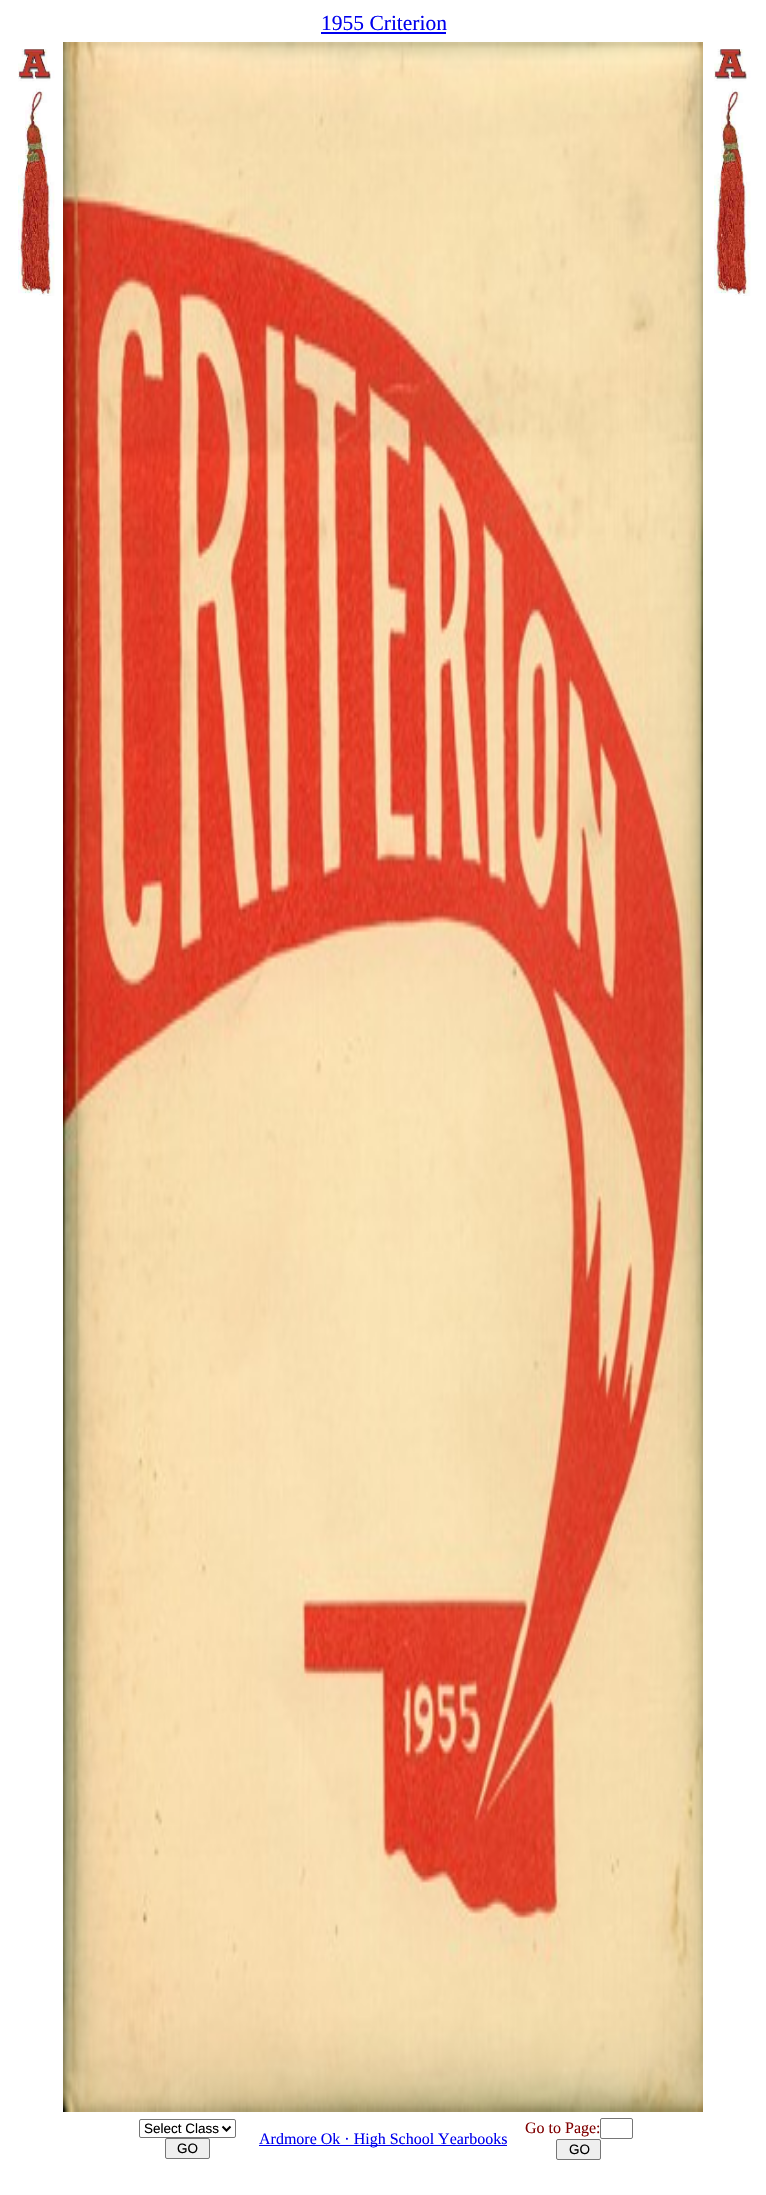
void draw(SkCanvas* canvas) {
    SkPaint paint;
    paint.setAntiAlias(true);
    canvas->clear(0xFFFFFFFF);
    SkFont font1(fontMgr->matchFamilyStyle("Liberation Serif", SkFontStyle::Normal()), 21.5f);
    font1.setSubpixel(true);
    paint.setColor(0xFF0000EE);
    canvas->drawString("1955 Criterion", 321, 30, font1, paint);
    canvas->drawRect(SkRect::MakeXYWH(321, 32, 125, 2), paint);
    canvas->drawImageRect(SkImages::DeferredFromEncodedData(SkData::MakeFromFileName("img1.png")), SkRect::MakeXYWH(18, 49, 37, 247), SkSamplingOptions());
    canvas->drawImageRect(SkImages::DeferredFromEncodedData(SkData::MakeFromFileName("img2.png")), SkRect::MakeXYWH(63, 42, 640, 2070), SkSamplingOptions());
    canvas->drawImageRect(SkImages::DeferredFromEncodedData(SkData::MakeFromFileName("img1.png")), SkRect::MakeXYWH(714, 49, 37, 247), SkSamplingOptions());
    paint.setStyle(SkPaint::kStroke_Style);
    paint.setStrokeWidth(1);
    paint.setColor(0xFF767676);
    canvas->drawRoundRect(SkRect::MakeXYWH(139.5f, 2119.5f, 96, 18), 1.5f, 1.5f, paint);
    paint.setStrokeWidth(2);
    paint.setColor(0xFF000000);
    canvas->drawPath(SkPathBuilder().moveTo(222.5f, 2126.5f).lineTo(226.5f, 2130.5f).lineTo(230.5f, 2126.5f).detach(), paint);
    SkFont font2(fontMgr->matchFamilyStyle("Liberation Sans", SkFontStyle::Normal()), 13.5f);
    font2.setSubpixel(true);
    paint.setStyle(SkPaint::kFill_Style);
    canvas->drawString("Select Class", 144, 2133, font2, paint);
    paint.setColor(0xFFEFEFEF);
    canvas->drawRoundRect(SkRect::MakeXYWH(165.5f, 2138.5f, 44, 20), 1.5f, 1.5f, paint);
    paint.setStyle(SkPaint::kStroke_Style);
    paint.setStrokeWidth(1);
    paint.setColor(0xFF767676);
    canvas->drawRoundRect(SkRect::MakeXYWH(165.5f, 2138.5f, 44, 20), 1.5f, 1.5f, paint);
    paint.setStyle(SkPaint::kFill_Style);
    paint.setColor(0xFF000000);
    canvas->drawString("GO", 177, 2153, font2, paint);
    paint.setColor(0xFF0000EE);
    canvas->drawRect(SkRect::MakeXYWH(259, 2145, 248, 1), paint);
    SkFont font3(fontMgr->matchFamilyStyle("Liberation Serif", SkFontStyle::Normal()), 16);
    font3.setSubpixel(true);
    canvas->drawString("Ardmore Ok · High School Yearbooks", 259, 2144, font3, paint);
    paint.setColor(0xFF800000);
    canvas->drawString("Go to Page:", 525, 2133, font3, paint);
    paint.setStyle(SkPaint::kStroke_Style);
    paint.setColor(0xFF767676);
    canvas->drawRoundRect(SkRect::MakeXYWH(600.5f, 2118.5f, 32, 20), 1.5f, 1.5f, paint);
    paint.setStyle(SkPaint::kFill_Style);
    paint.setColor(0xFFEFEFEF);
    canvas->drawRoundRect(SkRect::MakeXYWH(556.5f, 2139.5f, 44, 20), 1.5f, 1.5f, paint);
    paint.setStyle(SkPaint::kStroke_Style);
    paint.setColor(0xFF767676);
    canvas->drawRoundRect(SkRect::MakeXYWH(556.5f, 2139.5f, 44, 20), 1.5f, 1.5f, paint);
    paint.setStyle(SkPaint::kFill_Style);
    paint.setColor(0xFF000000);
    canvas->drawString("GO", 569, 2154, font2, paint);
}
